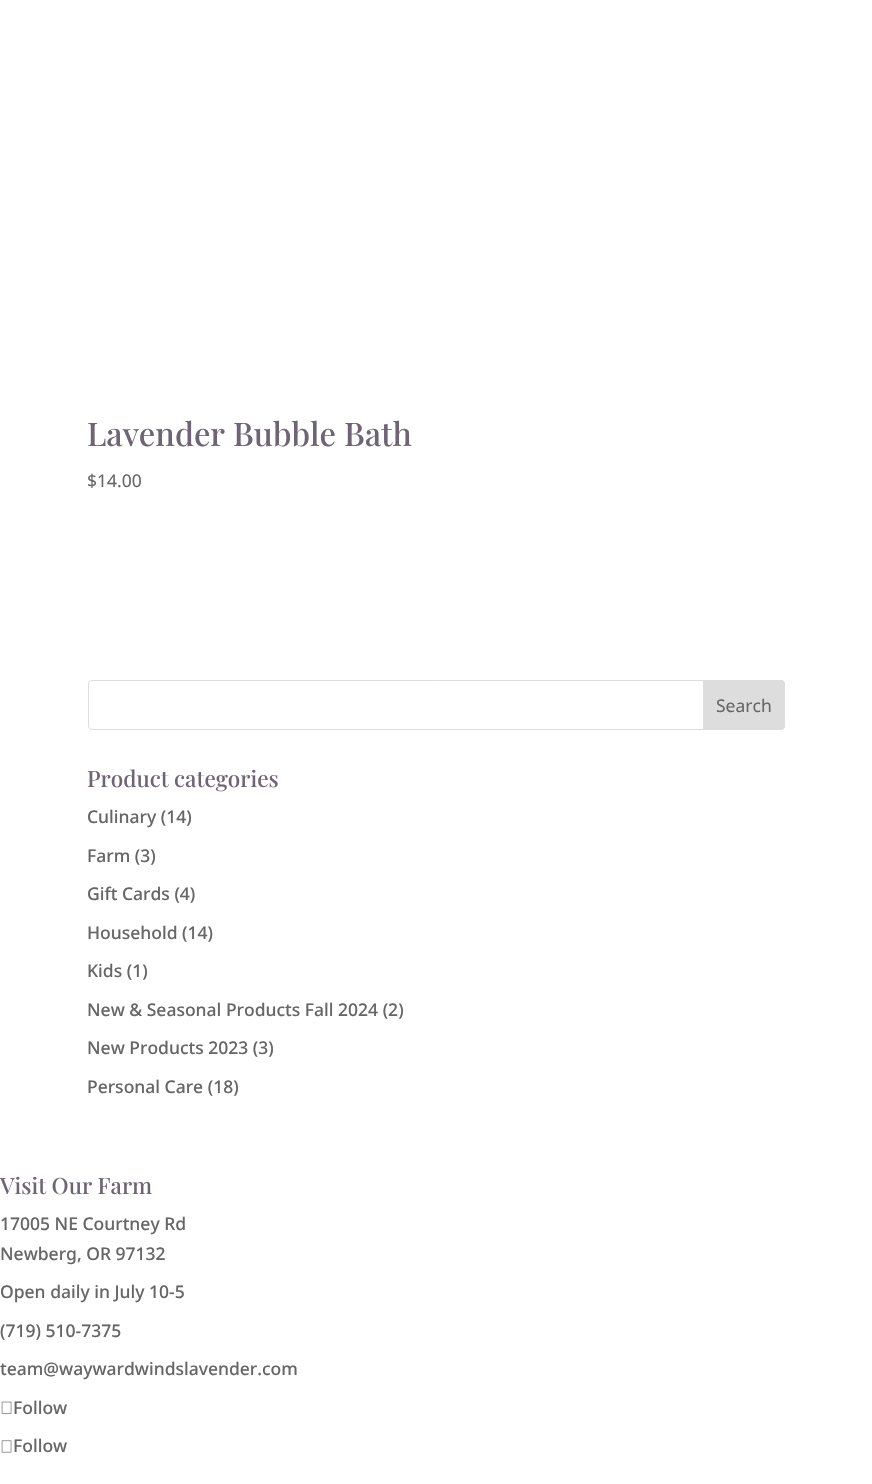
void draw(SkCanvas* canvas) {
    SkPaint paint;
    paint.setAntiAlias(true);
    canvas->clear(0xFFFFFFFF);
    SkFont font1(fontMgr->matchFamilyStyle("Playfair Display", SkFontStyle(500, SkFontStyle::kNormal_Width, SkFontStyle::kUpright_Slant)), 32.5f);
    font1.setSubpixel(true);
    paint.setColor(0xFF6F6475);
    canvas->drawString("Lavender Bubble Bath", 87, 446, font1, paint);
    SkFont font2(fontMgr->matchFamilyStyle("Noto Sans", SkFontStyle::Normal()), 17.5f);
    font2.setSubpixel(true);
    paint.setColor(0xFF666666);
    canvas->drawString("$14.00", 87, 487, font2, paint);
    paint.setStyle(SkPaint::kStroke_Style);
    paint.setStrokeWidth(1);
    paint.setColor(0xFFDDDDDD);
    canvas->drawRoundRect(SkRect::MakeXYWH(88.5f, 680.5f, 696, 49), 3.5f, 3.5f, paint);
    paint.setStyle(SkPaint::kFill_Style);
    canvas->drawPath(SkPathBuilder().moveTo(703.5f, 680.5f).lineTo(781, 680.5f).cubicTo(783, 680.5f, 784.5f, 682, 784.5f, 684).lineTo(784.5f, 726).cubicTo(784.5f, 728, 783, 729.5f, 781, 729.5f).lineTo(703.5f, 729.5f).close().detach(), paint);
    paint.setStyle(SkPaint::kStroke_Style);
    canvas->drawPath(SkPathBuilder().moveTo(703.5f, 680.5f).lineTo(781, 680.5f).cubicTo(783, 680.5f, 784.5f, 682, 784.5f, 684).lineTo(784.5f, 726).cubicTo(784.5f, 728, 783, 729.5f, 781, 729.5f).lineTo(703.5f, 729.5f).close().detach(), paint);
    paint.setStyle(SkPaint::kFill_Style);
    paint.setColor(0xFF666666);
    canvas->drawString("Search", 716, 712, font2, paint);
    SkFont font3(fontMgr->matchFamilyStyle("Playfair Display", SkFontStyle(500, SkFontStyle::kNormal_Width, SkFontStyle::kUpright_Slant)), 22.5f);
    font3.setSubpixel(true);
    paint.setColor(0xFF6F6475);
    canvas->drawString("Product categories", 87, 787, font3, paint);
    SkFont font4(fontMgr->matchFamilyStyle("Noto Sans", SkFontStyle(500, SkFontStyle::kNormal_Width, SkFontStyle::kUpright_Slant)), 17.5f);
    font4.setSubpixel(true);
    paint.setColor(0xFF666666);
    canvas->drawString("Culinary (14)", 87, 823, font4, paint);
    canvas->drawString("Farm (3)", 87, 862, font4, paint);
    canvas->drawString("Gift Cards (4)", 87, 900, font4, paint);
    canvas->drawString("Household (14)", 87, 939, font4, paint);
    canvas->drawString("Kids (1)", 87, 977, font4, paint);
    canvas->drawString("New & Seasonal Products Fall 2024 (2)", 87, 1016, font4, paint);
    canvas->drawString("New Products 2023 (3)", 87, 1054, font4, paint);
    canvas->drawString("Personal Care (18)", 87, 1093, font4, paint);
    paint.setColor(0xFF6F6475);
    canvas->drawString("Visit Our Farm", 0, 1194, font3, paint);
    paint.setColor(0xFF666666);
    canvas->drawString("17005 NE Courtney Rd", 0, 1230, font4, paint);
    canvas->drawString("Newberg, OR 97132", 0, 1260, font4, paint);
    canvas->drawString("Open daily in July 10-5", 0, 1298, font4, paint);
    canvas->drawString("(719) 510-7375", 0, 1337, font4, paint);
    canvas->drawString("team@waywardwindslavender.com", 0, 1375, font4, paint);
    canvas->drawImageRect(SkImages::DeferredFromEncodedData(SkData::MakeFromFileName("img1.png")), SkRect::MakeXYWH(1, 1401, 11, 13), SkSamplingOptions());
    canvas->drawString("Follow", 13, 1414, font4, paint);
    canvas->drawImageRect(SkImages::DeferredFromEncodedData(SkData::MakeFromFileName("img2.png")), SkRect::MakeXYWH(1, 1440, 11, 13), SkSamplingOptions());
    canvas->drawString("Follow", 13, 1452, font4, paint);
}
